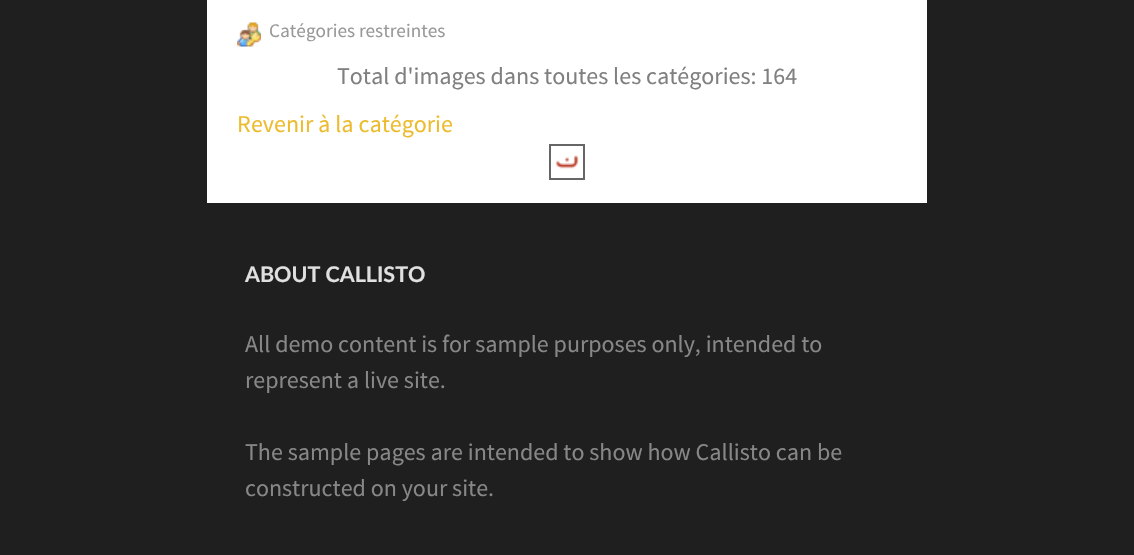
void draw(SkCanvas* canvas) {
    SkPaint paint;
    paint.setAntiAlias(true);
    canvas->clear(0xFF1F1F1F);
    paint.setColor(0xFFFFFFFF);
    canvas->drawRect(SkRect::MakeXYWH(207, 0, 720, 203), paint);
    canvas->drawImageRect(SkImages::DeferredFromEncodedData(SkData::MakeFromFileName("img1.png")), SkRect::MakeXYWH(237, 22, 24, 25), SkSamplingOptions());
    SkFont font1(fontMgr->matchFamilyStyle("Source Sans Pro", SkFontStyle::Normal()), 19.25f);
    font1.setSubpixel(true);
    paint.setColor(0xFF999999);
    canvas->drawString("Catégories restreintes", 269, 37, font1, paint);
    SkFont font2(fontMgr->matchFamilyStyle("Source Sans Pro", SkFontStyle::Normal()), 24);
    font2.setSubpixel(true);
    paint.setColor(0xFF808080);
    canvas->drawString("Total d'images dans toutes les catégories: 164", 337, 84, font2, paint);
    paint.setColor(0xFFECBC2E);
    canvas->drawString("Revenir à la catégorie", 237, 132, font2, paint);
    paint.setStyle(SkPaint::kStroke_Style);
    paint.setStrokeWidth(2);
    paint.setColor(0xFF666666);
    canvas->drawRect(SkRect::MakeXYWH(550, 145, 34, 34), paint);
    canvas->drawImageRect(SkImages::DeferredFromEncodedData(SkData::MakeFromFileName("img2.png")), SkRect::MakeXYWH(555, 155, 24, 14), SkSamplingOptions());
    SkFont font3(fontMgr->matchFamilyStyle("Lato", SkFontStyle::Bold()), 21.5f);
    font3.setSubpixel(true);
    paint.setStyle(SkPaint::kFill_Style);
    paint.setColor(0xFFE0E0E0);
    canvas->drawString("ABOUT CALLISTO", 245, 282, font3, paint);
    paint.setColor(0xFF878787);
    canvas->drawString("All demo content is for sample purposes only, intended to", 245, 352, font2, paint);
    canvas->drawString("represent a live site.", 245, 388, font2, paint);
    canvas->drawString("The sample pages are intended to show how Callisto can be", 245, 460, font2, paint);
    canvas->drawString("constructed on your site.", 245, 496, font2, paint);
}
